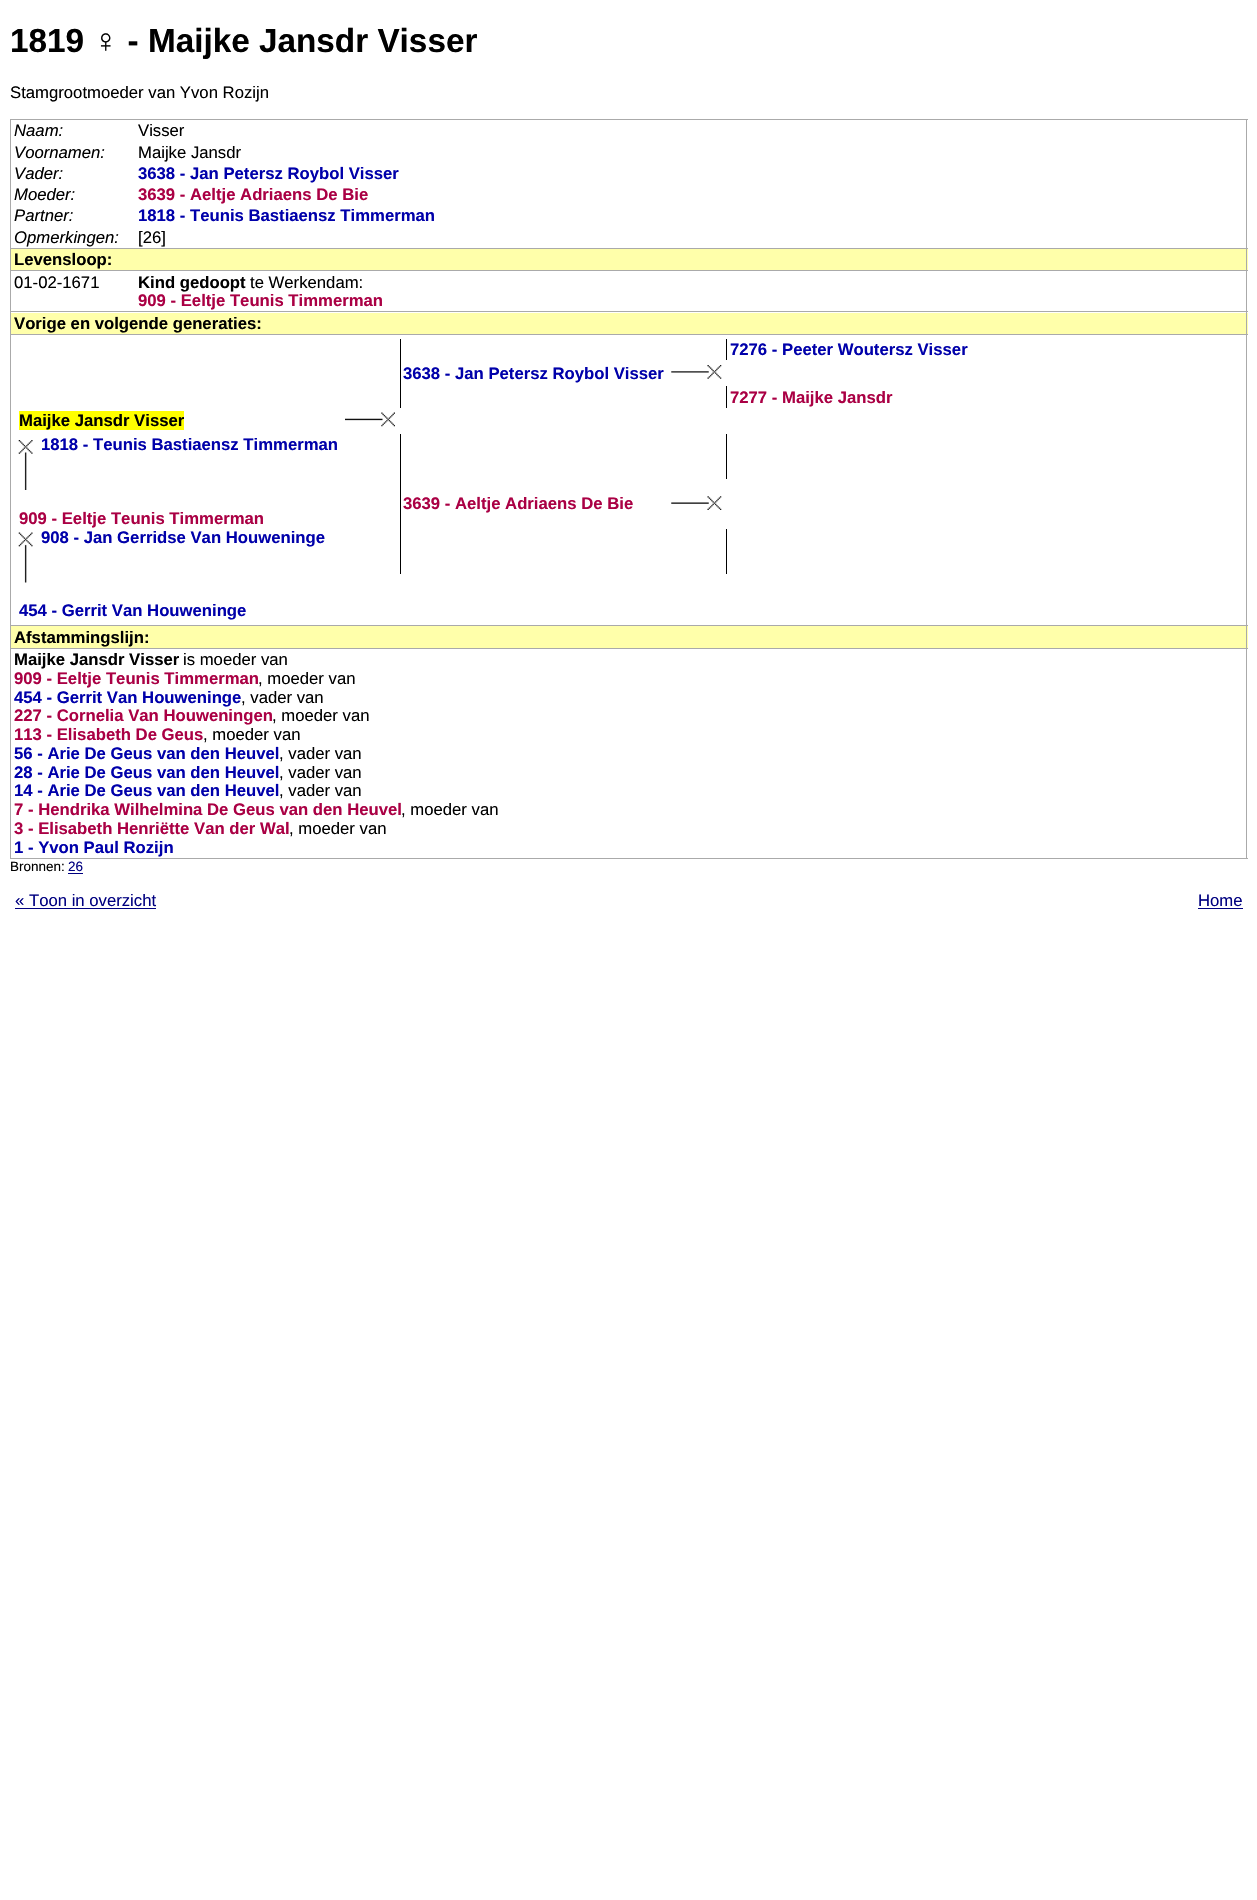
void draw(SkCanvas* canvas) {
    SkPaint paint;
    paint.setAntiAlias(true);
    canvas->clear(0xFFFFFFFF);
    SkFont font1(fontMgr->matchFamilyStyle("Liberation Sans", SkFontStyle::Bold()), 33.3f);
    font1.setSubpixel(true);
    paint.setColor(0xFF000000);
    canvas->drawString("1819 ♀ - Maijke Jansdr Visser", 10, 52, font1, paint);
    SkFont font2(fontMgr->matchFamilyStyle("Liberation Sans", SkFontStyle::Normal()), 16.7f);
    font2.setSubpixel(true);
    canvas->drawString("Stamgrootmoeder van Yvon Rozijn", 10, 98, font2, paint);
    paint.setColor(0xFFAAAAAA);
    canvas->drawRect(SkRect::MakeXYWH(10, 119, 1238, 1), paint);
    paint.setColor(0xFFFFFFAA);
    canvas->drawRect(SkRect::MakeXYWH(11, 249, 1237, 21), paint);
    canvas->drawRect(SkRect::MakeXYWH(11, 313, 1237, 21), paint);
    canvas->drawRect(SkRect::MakeXYWH(11, 626, 1237, 22), paint);
    paint.setColor(0xFFAAAAAA);
    canvas->drawRect(SkRect::MakeXYWH(1246, 119, 1, 740), paint);
    canvas->drawRect(SkRect::MakeXYWH(10, 858, 1238, 1), paint);
    canvas->drawRect(SkRect::MakeXYWH(10, 119, 1, 740), paint);
    SkFont font3(fontMgr->matchFamilyStyle("Liberation Sans", SkFontStyle::Italic()), 16.7f);
    font3.setSubpixel(true);
    paint.setColor(0xFF000000);
    canvas->drawString("Naam:", 14, 136, font3, paint);
    canvas->drawString("Visser", 138, 136, font2, paint);
    canvas->drawString("Voornamen:", 14, 158, font3, paint);
    canvas->drawString("Maijke Jansdr", 138, 158, font2, paint);
    canvas->drawString("Vader:", 14, 179, font3, paint);
    SkFont font4(fontMgr->matchFamilyStyle("Liberation Sans", SkFontStyle::Bold()), 16.7f);
    font4.setSubpixel(true);
    paint.setColor(0xFF0000AA);
    canvas->drawString("3638 - Jan Petersz Roybol Visser", 138, 179, font4, paint);
    paint.setColor(0xFF000000);
    canvas->drawString("Moeder:", 14, 200, font3, paint);
    paint.setColor(0xFFAA0044);
    canvas->drawString("3639 - Aeltje Adriaens De Bie", 138, 200, font4, paint);
    paint.setColor(0xFF000000);
    canvas->drawString("Partner:", 14, 221, font3, paint);
    paint.setColor(0xFF0000AA);
    canvas->drawString("1818 - Teunis Bastiaensz Timmerman", 138, 221, font4, paint);
    paint.setColor(0xFF000000);
    canvas->drawString("Opmerkingen:", 14, 243, font3, paint);
    canvas->drawString("[26]", 138, 243, font2, paint);
    paint.setColor(0xFFAAAAAA);
    canvas->drawRect(SkRect::MakeXYWH(10, 248, 1238, 1), paint);
    canvas->drawRect(SkRect::MakeXYWH(10, 270, 1238, 1), paint);
    paint.setColor(0xFF000000);
    canvas->drawString("Levensloop:", 14, 265, font4, paint);
    canvas->drawString("01-02-1671", 14, 288, font2, paint);
    canvas->drawString("Kind gedoopt", 138, 288, font4, paint);
    canvas->drawString("te Werkendam:", 250, 288, font2, paint);
    paint.setColor(0xFFAA0044);
    canvas->drawString("909 - Eeltje Teunis Timmerman", 138, 306, font4, paint);
    paint.setColor(0xFFAAAAAA);
    canvas->drawRect(SkRect::MakeXYWH(10, 311, 1238, 1), paint);
    canvas->drawRect(SkRect::MakeXYWH(10, 334, 1238, 1), paint);
    paint.setColor(0xFF000000);
    canvas->drawString("Vorige en volgende generaties:", 14, 329, font4, paint);
    canvas->drawRect(SkRect::MakeXYWH(726, 339, 1, 21), paint);
    paint.setColor(0xFF0000AA);
    canvas->drawString("7276 - Peeter Woutersz Visser", 730, 355, font4, paint);
    paint.setColor(0xFF000000);
    canvas->drawRect(SkRect::MakeXYWH(400, 339, 1, 69), paint);
    paint.setColor(0xFF0000AA);
    canvas->drawString("3638 - Jan Petersz Roybol Visser", 403, 379, font4, paint);
    canvas->drawImageRect(SkImages::DeferredFromEncodedData(SkData::MakeFromFileName("img1.png")), SkRect::MakeXYWH(671, 365, 51, 14), SkSamplingOptions());
    paint.setColor(0xFF000000);
    canvas->drawRect(SkRect::MakeXYWH(726, 386, 1, 22), paint);
    paint.setColor(0xFFAA0044);
    canvas->drawString("7277 - Maijke Jansdr", 730, 403, font4, paint);
    paint.setColor(0xFFFFFF00);
    canvas->drawRect(SkRect::MakeXYWH(19, 411, 165, 19), paint);
    paint.setColor(0xFF000000);
    canvas->drawString("Maijke Jansdr Visser", 19, 426, font4, paint);
    canvas->drawImageRect(SkImages::DeferredFromEncodedData(SkData::MakeFromFileName("img2.png")), SkRect::MakeXYWH(345, 412, 50, 15), SkSamplingOptions());
    canvas->drawImageRect(SkImages::DeferredFromEncodedData(SkData::MakeFromFileName("img3.png")), SkRect::MakeXYWH(18, 440, 15, 50), SkSamplingOptions());
    paint.setColor(0xFF0000AA);
    canvas->drawString("1818 - Teunis Bastiaensz Timmerman", 41, 450, font4, paint);
    paint.setColor(0xFFAA0044);
    canvas->drawString("909 - Eeltje Teunis Timmerman", 19, 524, font4, paint);
    canvas->drawImageRect(SkImages::DeferredFromEncodedData(SkData::MakeFromFileName("img4.png")), SkRect::MakeXYWH(18, 532, 15, 51), SkSamplingOptions());
    paint.setColor(0xFF0000AA);
    canvas->drawString("908 - Jan Gerridse Van Houweninge", 41, 543, font4, paint);
    canvas->drawString("454 - Gerrit Van Houweninge", 19, 616, font4, paint);
    paint.setColor(0xFF000000);
    canvas->drawRect(SkRect::MakeXYWH(400, 434, 1, 140), paint);
    paint.setColor(0xFFAA0044);
    canvas->drawString("3639 - Aeltje Adriaens De Bie", 403, 509, font4, paint);
    paint.setColor(0xFF000000);
    canvas->drawRect(SkRect::MakeXYWH(726, 434, 1, 45), paint);
    canvas->drawImageRect(SkImages::DeferredFromEncodedData(SkData::MakeFromFileName("img5.png")), SkRect::MakeXYWH(671, 496, 51, 14), SkSamplingOptions());
    canvas->drawRect(SkRect::MakeXYWH(726, 529, 1, 45), paint);
    paint.setColor(0xFFAAAAAA);
    canvas->drawRect(SkRect::MakeXYWH(10, 625, 1238, 1), paint);
    canvas->drawRect(SkRect::MakeXYWH(10, 648, 1238, 1), paint);
    paint.setColor(0xFF000000);
    canvas->drawString("Afstammingslijn:", 14, 643, font4, paint);
    canvas->drawString("Maijke Jansdr Visser", 14, 665, font4, paint);
    canvas->drawString("is moeder van", 183, 665, font2, paint);
    paint.setColor(0xFFAA0044);
    canvas->drawString("909 - Eeltje Teunis Timmerman", 14, 684, font4, paint);
    paint.setColor(0xFF000000);
    canvas->drawString(", moeder van", 258, 684, font2, paint);
    paint.setColor(0xFF0000AA);
    canvas->drawString("454 - Gerrit Van Houweninge", 14, 703, font4, paint);
    paint.setColor(0xFF000000);
    canvas->drawString(", vader van", 241, 703, font2, paint);
    paint.setColor(0xFFAA0044);
    canvas->drawString("227 - Cornelia Van Houweningen", 14, 721, font4, paint);
    paint.setColor(0xFF000000);
    canvas->drawString(", moeder van", 272, 721, font2, paint);
    paint.setColor(0xFFAA0044);
    canvas->drawString("113 - Elisabeth De Geus", 14, 740, font4, paint);
    paint.setColor(0xFF000000);
    canvas->drawString(", moeder van", 203, 740, font2, paint);
    paint.setColor(0xFF0000AA);
    canvas->drawString("56 - Arie De Geus van den Heuvel", 14, 759, font4, paint);
    paint.setColor(0xFF000000);
    canvas->drawString(", vader van", 279, 759, font2, paint);
    paint.setColor(0xFF0000AA);
    canvas->drawString("28 - Arie De Geus van den Heuvel", 14, 778, font4, paint);
    paint.setColor(0xFF000000);
    canvas->drawString(", vader van", 279, 778, font2, paint);
    paint.setColor(0xFF0000AA);
    canvas->drawString("14 - Arie De Geus van den Heuvel", 14, 796, font4, paint);
    paint.setColor(0xFF000000);
    canvas->drawString(", vader van", 279, 796, font2, paint);
    paint.setColor(0xFFAA0044);
    canvas->drawString("7 - Hendrika Wilhelmina De Geus van den Heuvel", 14, 815, font4, paint);
    paint.setColor(0xFF000000);
    canvas->drawString(", moeder van", 401, 815, font2, paint);
    paint.setColor(0xFFAA0044);
    canvas->drawString("3 - Elisabeth Henriëtte Van der Wal", 14, 834, font4, paint);
    paint.setColor(0xFF000000);
    canvas->drawString(", moeder van", 289, 834, font2, paint);
    paint.setColor(0xFF0000AA);
    canvas->drawString("1 - Yvon Paul Rozijn", 14, 853, font4, paint);
    SkFont font5(fontMgr->matchFamilyStyle("Liberation Sans", SkFontStyle::Normal()), 13.5f);
    font5.setSubpixel(true);
    paint.setColor(0xFF000000);
    canvas->drawString("Bronnen:", 10, 871, font5, paint);
    paint.setColor(0xFF000080);
    canvas->drawString("26", 68, 871, font5, paint);
    canvas->drawRect(SkRect::MakeXYWH(68, 873, 15, 1), paint);
    canvas->drawString("« Toon in overzicht", 15, 906, font2, paint);
    canvas->drawRect(SkRect::MakeXYWH(15, 908, 141, 1), paint);
    canvas->drawString("Home", 1198, 906, font2, paint);
    canvas->drawRect(SkRect::MakeXYWH(1198, 908, 45, 1), paint);
}
